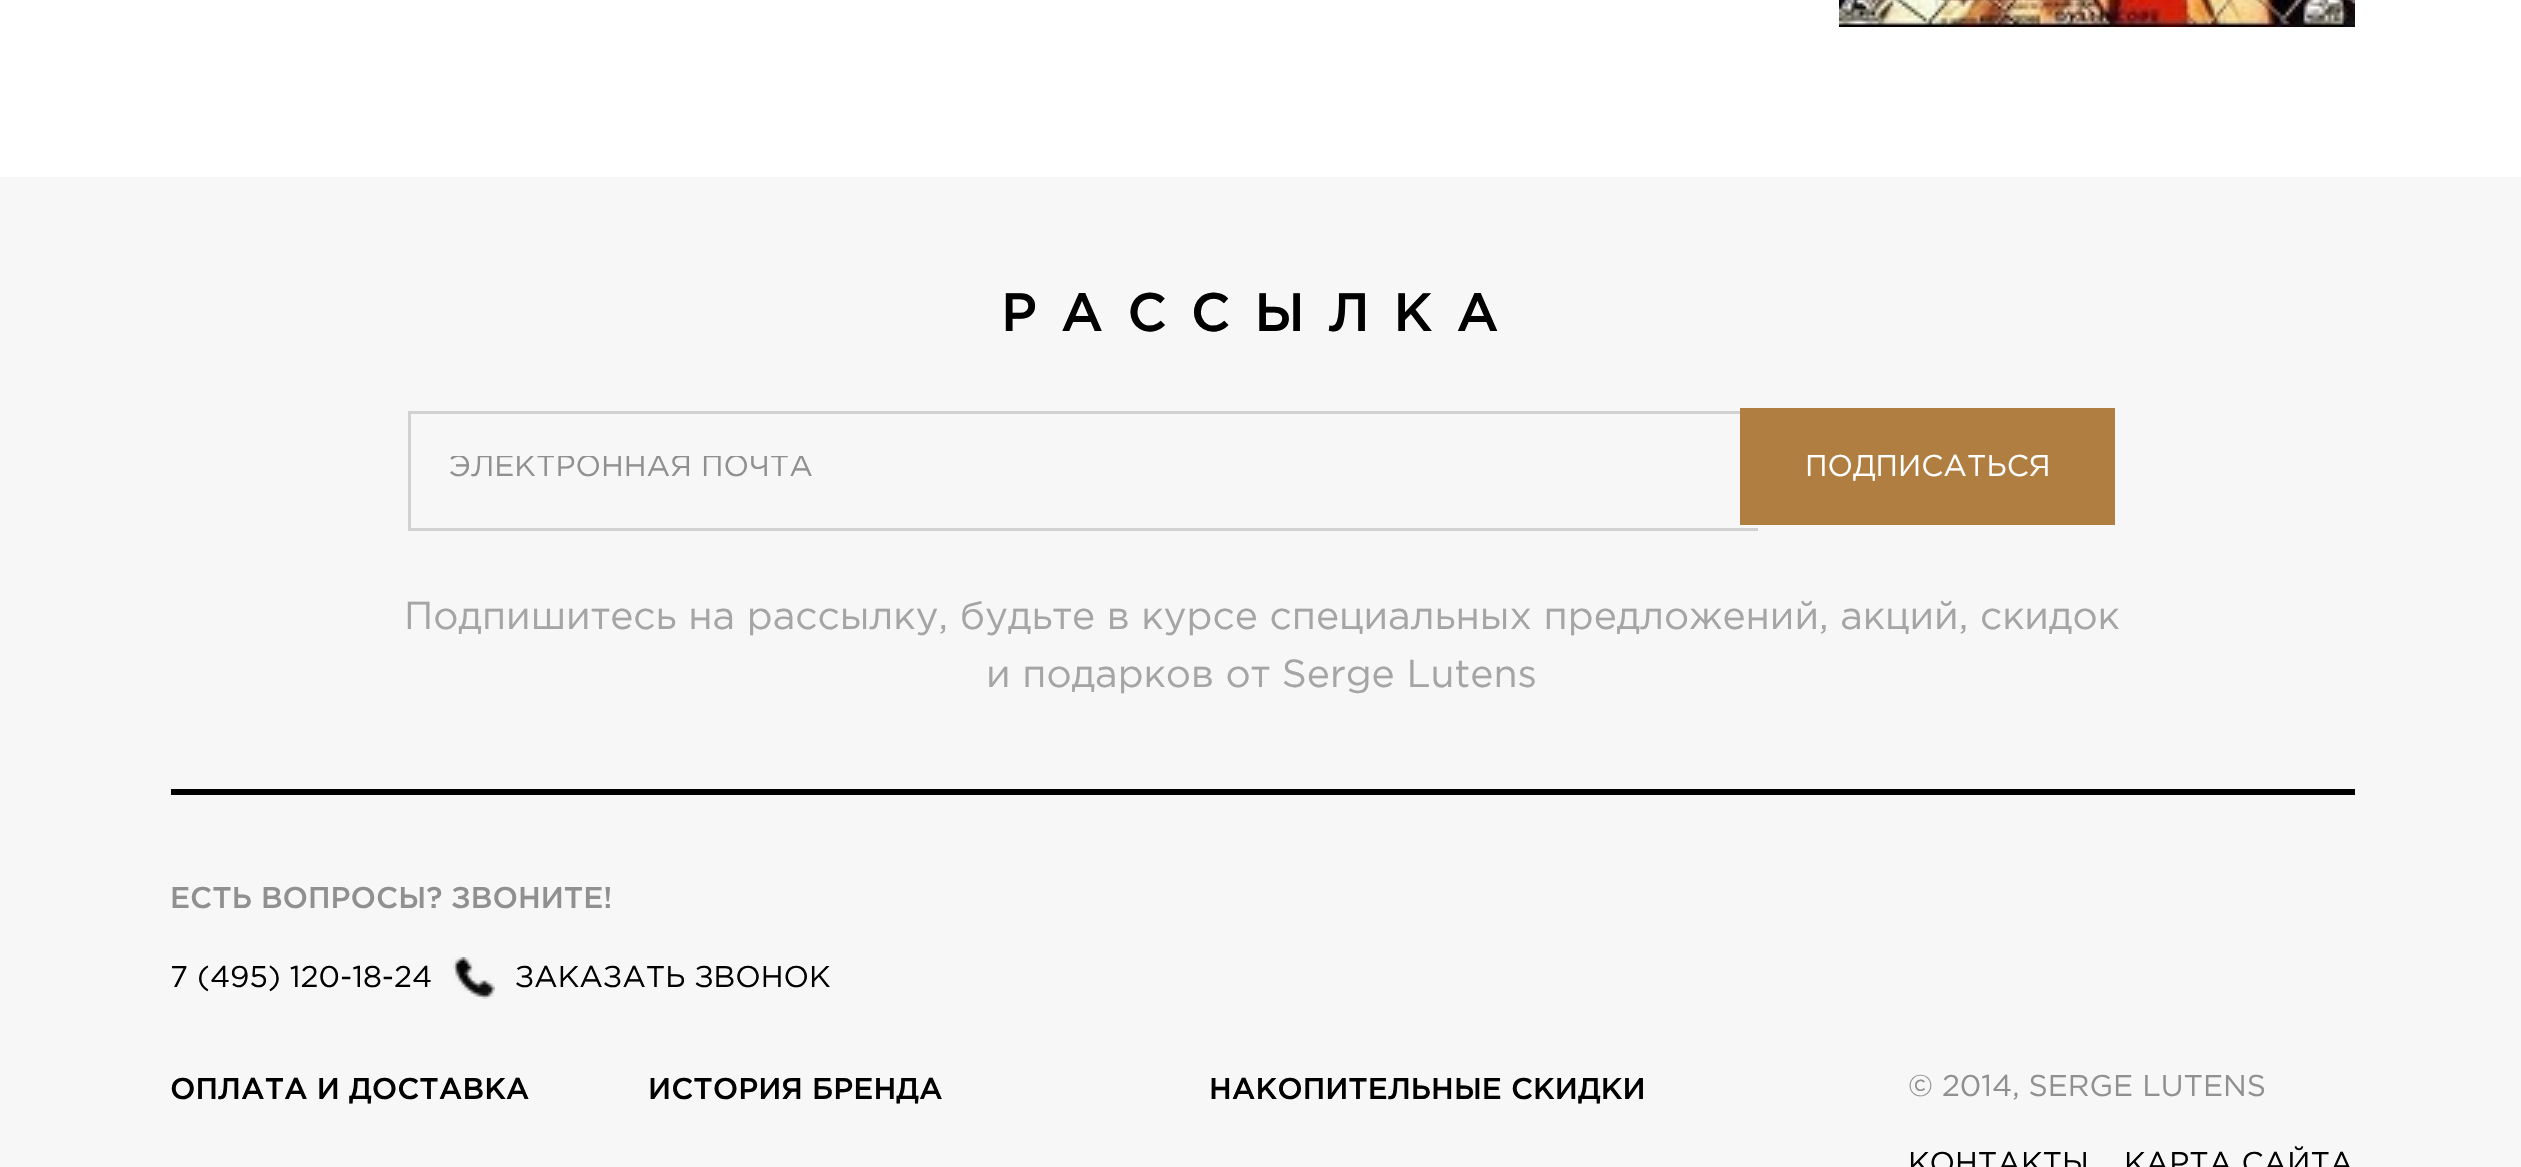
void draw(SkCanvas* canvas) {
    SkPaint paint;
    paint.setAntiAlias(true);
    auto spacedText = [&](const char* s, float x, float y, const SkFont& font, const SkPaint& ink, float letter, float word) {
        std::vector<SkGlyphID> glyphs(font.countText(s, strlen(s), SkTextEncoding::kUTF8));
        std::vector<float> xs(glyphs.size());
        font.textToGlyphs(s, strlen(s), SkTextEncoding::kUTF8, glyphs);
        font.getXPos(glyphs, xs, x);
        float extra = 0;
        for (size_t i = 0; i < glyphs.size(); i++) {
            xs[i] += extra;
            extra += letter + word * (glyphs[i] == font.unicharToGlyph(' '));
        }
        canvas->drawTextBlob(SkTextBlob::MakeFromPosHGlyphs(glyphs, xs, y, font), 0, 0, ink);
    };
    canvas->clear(0xFFFFFFFF);
    canvas->drawImageRect(SkImages::DeferredFromEncodedData(SkData::MakeFromFileName("img1.png")), SkRect::MakeXYWH(1839, 0, 516, 27), SkSamplingOptions());
    paint.setColor(0xFFF7F7F7);
    canvas->drawRect(SkRect::MakeXYWH(0, 177, 2521, 990), paint);
    paint.setColor(0xFF000000);
    canvas->drawRect(SkRect::MakeXYWH(171, 789, 2184, 6), paint);
    SkFont font1(fontMgr->matchFamilyStyle("Gotham", SkFontStyle(500, SkFontStyle::kNormal_Width, SkFontStyle::kUpright_Slant)), 54);
    font1.setSubpixel(true);
    spacedText("РАССЫЛКА", 1001, 331, font1, paint, 23.75f, 0);
    paint.setColor(0xFFD1D1D1);
    canvas->drawRect(SkRect::MakeXYWH(408, 411, 1332, 3), paint);
    canvas->drawRect(SkRect::MakeXYWH(408, 528, 1350, 3), paint);
    canvas->drawRect(SkRect::MakeXYWH(408, 411, 3, 120), paint);
    canvas->save();
    canvas->clipRect(SkRect::MakeXYWH(450, 456, 1269, 30));
    SkFont font2(fontMgr->matchFamilyStyle("Gotham", SkFontStyle::Normal()), 30);
    font2.setSubpixel(true);
    paint.setColor(0xFF909090);
    canvas->drawString("ЭЛЕКТРОННАЯ ПОЧТА", 449, 476, font2, paint);
    canvas->restore();
    paint.setColor(0xFFB17E41);
    canvas->drawRect(SkRect::MakeXYWH(1740, 408, 375, 117), paint);
    paint.setColor(0xFFFFFFFF);
    canvas->drawString("ПОДПИСАТЬСЯ", 1805, 476, font2, paint);
    SkFont font3(fontMgr->matchFamilyStyle("Gotham", SkFontStyle::Normal()), 39);
    font3.setSubpixel(true);
    paint.setColor(0xFFA5A5A5);
    canvas->drawString("Подпишитесь на рассылку, будьте в курсе специальных предложений, акций, скидок", 404, 629, font3, paint);
    canvas->drawString("и подарков от Serge Lutens", 986, 687, font3, paint);
    SkFont font4(fontMgr->matchFamilyStyle("Gotham", SkFontStyle(500, SkFontStyle::kNormal_Width, SkFontStyle::kUpright_Slant)), 30);
    font4.setSubpixel(true);
    paint.setColor(0xFF909090);
    canvas->drawString("ЕСТЬ ВОПРОСЫ? ЗВОНИТЕ!", 170, 908, font4, paint);
    paint.setColor(0xFF000000);
    canvas->drawString("7 (495) 120-18-24", 170, 987, font2, paint);
    canvas->drawImageRect(SkImages::DeferredFromEncodedData(SkData::MakeFromFileName("img2.png")), SkRect::MakeXYWH(453, 957, 42, 42), SkSamplingOptions());
    canvas->drawString("ЗАКАЗАТЬ ЗВОНОК", 515, 987, font2, paint);
    canvas->drawString("ОПЛАТА И ДОСТАВКА", 170, 1099, font4, paint);
    canvas->drawString("ИСТОРИЯ БРЕНДА", 648, 1099, font4, paint);
    canvas->drawString("НАКОПИТЕЛЬНЫЕ СКИДКИ", 1209, 1099, font4, paint);
    paint.setColor(0xFF909090);
    canvas->drawString("© 2014, SERGE LUTENS", 1908, 1096, font2, paint);
    paint.setColor(0xFF000000);
    canvas->drawString("КОНТАКТЫ", 1908, 1173, font2, paint);
    canvas->drawString("КАРТА САЙТА", 2124, 1173, font2, paint);
}
